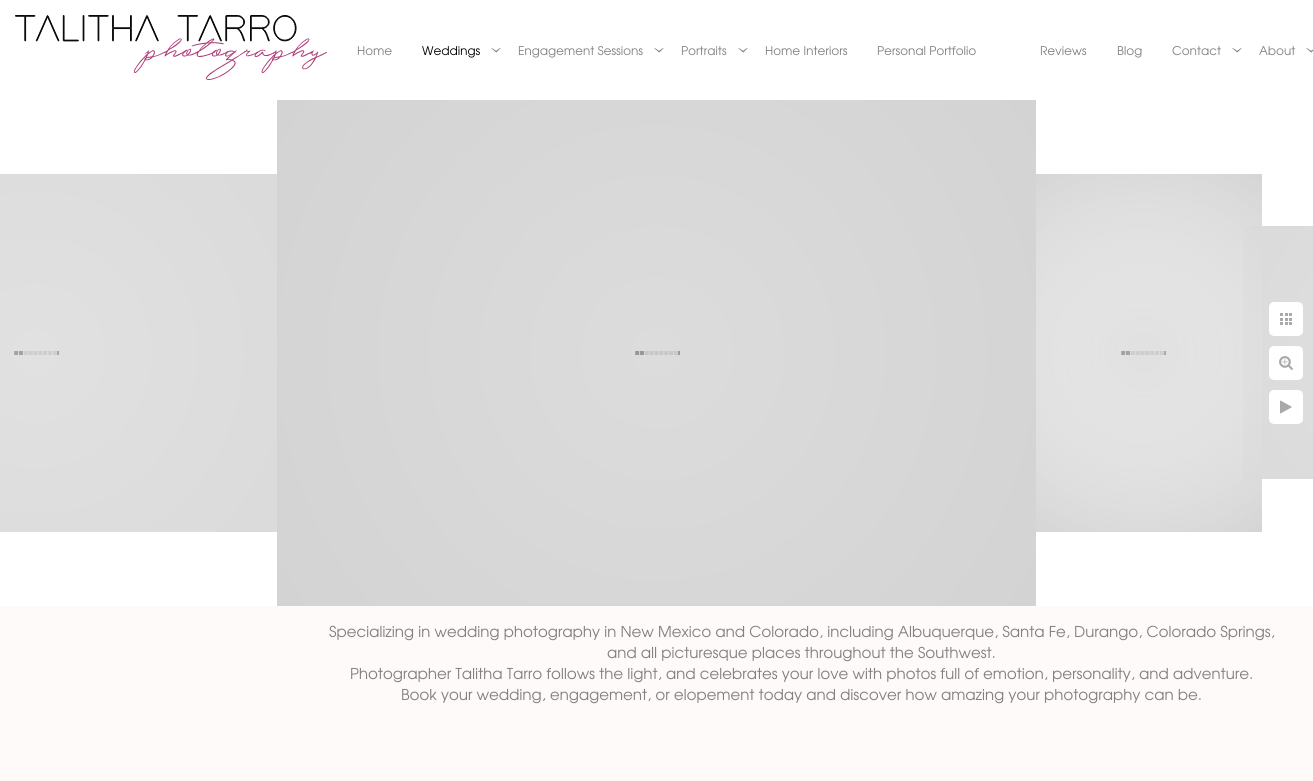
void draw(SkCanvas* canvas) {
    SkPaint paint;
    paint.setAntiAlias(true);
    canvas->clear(0xFFFFFFFF);
    paint.setColor(0xFFDADADA);
    canvas->drawRect(SkRect::MakeXYWH(1036, 174, 226, 358), paint);
    canvas->drawImageRect(SkImages::DeferredFromEncodedData(SkData::MakeFromFileName("img1.png")), SkRect::MakeXYWH(15, 15, 312, 65), SkSamplingOptions());
    canvas->drawImageRect(SkImages::DeferredFromEncodedData(SkData::MakeFromFileName("img2.png")), SkRect::MakeXYWH(357, 46, 35, 10), SkSamplingOptions());
    canvas->drawImageRect(SkImages::DeferredFromEncodedData(SkData::MakeFromFileName("img3.png")), SkRect::MakeXYWH(422, 46, 58, 12), SkSamplingOptions());
    canvas->drawImageRect(SkImages::DeferredFromEncodedData(SkData::MakeFromFileName("img4.png")), SkRect::MakeXYWH(491, 47, 10, 6), SkSamplingOptions());
    canvas->drawImageRect(SkImages::DeferredFromEncodedData(SkData::MakeFromFileName("img5.png")), SkRect::MakeXYWH(518, 46, 125, 12), SkSamplingOptions());
    canvas->drawImageRect(SkImages::DeferredFromEncodedData(SkData::MakeFromFileName("img4.png")), SkRect::MakeXYWH(654, 47, 10, 6), SkSamplingOptions());
    canvas->drawImageRect(SkImages::DeferredFromEncodedData(SkData::MakeFromFileName("img6.png")), SkRect::MakeXYWH(681, 46, 46, 10), SkSamplingOptions());
    canvas->drawImageRect(SkImages::DeferredFromEncodedData(SkData::MakeFromFileName("img4.png")), SkRect::MakeXYWH(738, 47, 10, 6), SkSamplingOptions());
    canvas->drawImageRect(SkImages::DeferredFromEncodedData(SkData::MakeFromFileName("img7.png")), SkRect::MakeXYWH(765, 46, 83, 10), SkSamplingOptions());
    canvas->drawImageRect(SkImages::DeferredFromEncodedData(SkData::MakeFromFileName("img8.png")), SkRect::MakeXYWH(877, 46, 99, 10), SkSamplingOptions());
    canvas->drawImageRect(SkImages::DeferredFromEncodedData(SkData::MakeFromFileName("img9.png")), SkRect::MakeXYWH(1040, 46, 47, 10), SkSamplingOptions());
    canvas->drawImageRect(SkImages::DeferredFromEncodedData(SkData::MakeFromFileName("img10.png")), SkRect::MakeXYWH(1117, 46, 25, 12), SkSamplingOptions());
    canvas->drawImageRect(SkImages::DeferredFromEncodedData(SkData::MakeFromFileName("img11.png")), SkRect::MakeXYWH(1172, 46, 49, 10), SkSamplingOptions());
    canvas->drawImageRect(SkImages::DeferredFromEncodedData(SkData::MakeFromFileName("img4.png")), SkRect::MakeXYWH(1232, 47, 10, 6), SkSamplingOptions());
    canvas->drawImageRect(SkImages::DeferredFromEncodedData(SkData::MakeFromFileName("img12.png")), SkRect::MakeXYWH(1259, 46, 37, 10), SkSamplingOptions());
    canvas->drawImageRect(SkImages::DeferredFromEncodedData(SkData::MakeFromFileName("img13.png")), SkRect::MakeXYWH(1306, 48, 7, 5), SkSamplingOptions());
    {
        const SkColor colors[] = {0xFFE1E1E1, 0xFFDADADA};
        const float stops[] = {0, 1};
        paint.setShader(SkGradientShader::MakeRadial({36, 353}, 323, colors, stops, 2, SkTileMode::kClamp));
        paint.setAlpha(255);
    }
    canvas->drawRect(SkRect::MakeXYWH(0, 174, 277, 358), paint);
    canvas->drawImageRect(SkImages::DeferredFromEncodedData(SkData::MakeFromFileName("img14.png")), SkRect::MakeXYWH(14, 351, 45, 4), SkSamplingOptions());
    {
        const SkColor colors[] = {0xFFDCDCDC, 0xFFD3D3D3};
        const float stops[] = {0, 1};
        paint.setShader(SkGradientShader::MakeRadial({657, 353}, 456, colors, stops, 2, SkTileMode::kClamp));
        paint.setAlpha(255);
    }
    canvas->drawRect(SkRect::MakeXYWH(277, 100, 759, 506), paint);
    canvas->drawImageRect(SkImages::DeferredFromEncodedData(SkData::MakeFromFileName("img15.png")), SkRect::MakeXYWH(635, 351, 45, 4), SkSamplingOptions());
    {
        const SkColor colors[] = {0xFFD5D5D5, 0xFFD4D4D4};
        const float stops[] = {0, 1};
        paint.setShader(SkGradientShader::MakeRadial({1433, 353}, 228, colors, stops, 2, SkTileMode::kClamp));
        paint.setAlpha(255);
    }
    canvas->drawRect(SkRect::MakeXYWH(1243, 226, 19, 253), paint);
    {
        const SkColor colors[] = {0x2BFFFFFF, 0xD9D3D3D3};
        const float stops[] = {0, 1};
        paint.setShader(SkGradientShader::MakeRadial({1143, 353}, 215, colors, stops, 2, SkTileMode::kClamp));
        paint.setAlpha(255);
    }
    canvas->drawRect(SkRect::MakeXYWH(1036, 174, 226, 358), paint);
    canvas->drawImageRect(SkImages::DeferredFromEncodedData(SkData::MakeFromFileName("img16.png")), SkRect::MakeXYWH(1121, 351, 45, 4), SkSamplingOptions());
    {
        const SkColor colors[] = {0xFFE1E1E1, 0xFFDADADA};
        const float stops[] = {0, 1};
        paint.setShader(SkGradientShader::MakeRadial({1433, 353}, 228, colors, stops, 2, SkTileMode::kClamp));
        paint.setAlpha(255);
    }
    canvas->drawRect(SkRect::MakeXYWH(1262, 226, 51, 253), paint);
    paint.setShader(nullptr);
    paint.setColor(0xFFFFFFFF);
    canvas->drawRoundRect(SkRect::MakeXYWH(1269, 302, 34, 34), 5, 5, paint);
    canvas->drawImageRect(SkImages::DeferredFromEncodedData(SkData::MakeFromFileName("img17.png")), SkRect::MakeXYWH(1280, 313, 12, 12), SkSamplingOptions());
    canvas->drawRoundRect(SkRect::MakeXYWH(1269, 346, 34, 34), 5, 5, paint);
    canvas->drawImageRect(SkImages::DeferredFromEncodedData(SkData::MakeFromFileName("img18.png")), SkRect::MakeXYWH(1279, 356, 14, 14), SkSamplingOptions());
    canvas->drawRoundRect(SkRect::MakeXYWH(1269, 390, 34, 34), 5, 5, paint);
    canvas->drawImageRect(SkImages::DeferredFromEncodedData(SkData::MakeFromFileName("img19.png")), SkRect::MakeXYWH(1280, 400, 12, 14), SkSamplingOptions());
    paint.setColor(0xFFFFFAFA);
    canvas->drawRect(SkRect::MakeXYWH(0, 606, 1313, 175), paint);
    canvas->drawImageRect(SkImages::DeferredFromEncodedData(SkData::MakeFromFileName("img20.png")), SkRect::MakeXYWH(329, 625, 946, 16), SkSamplingOptions());
    canvas->drawImageRect(SkImages::DeferredFromEncodedData(SkData::MakeFromFileName("img21.png")), SkRect::MakeXYWH(607, 646, 388, 16), SkSamplingOptions());
    canvas->drawImageRect(SkImages::DeferredFromEncodedData(SkData::MakeFromFileName("img22.png")), SkRect::MakeXYWH(351, 667, 901, 16), SkSamplingOptions());
    canvas->drawImageRect(SkImages::DeferredFromEncodedData(SkData::MakeFromFileName("img23.png")), SkRect::MakeXYWH(402, 688, 799, 16), SkSamplingOptions());
}
